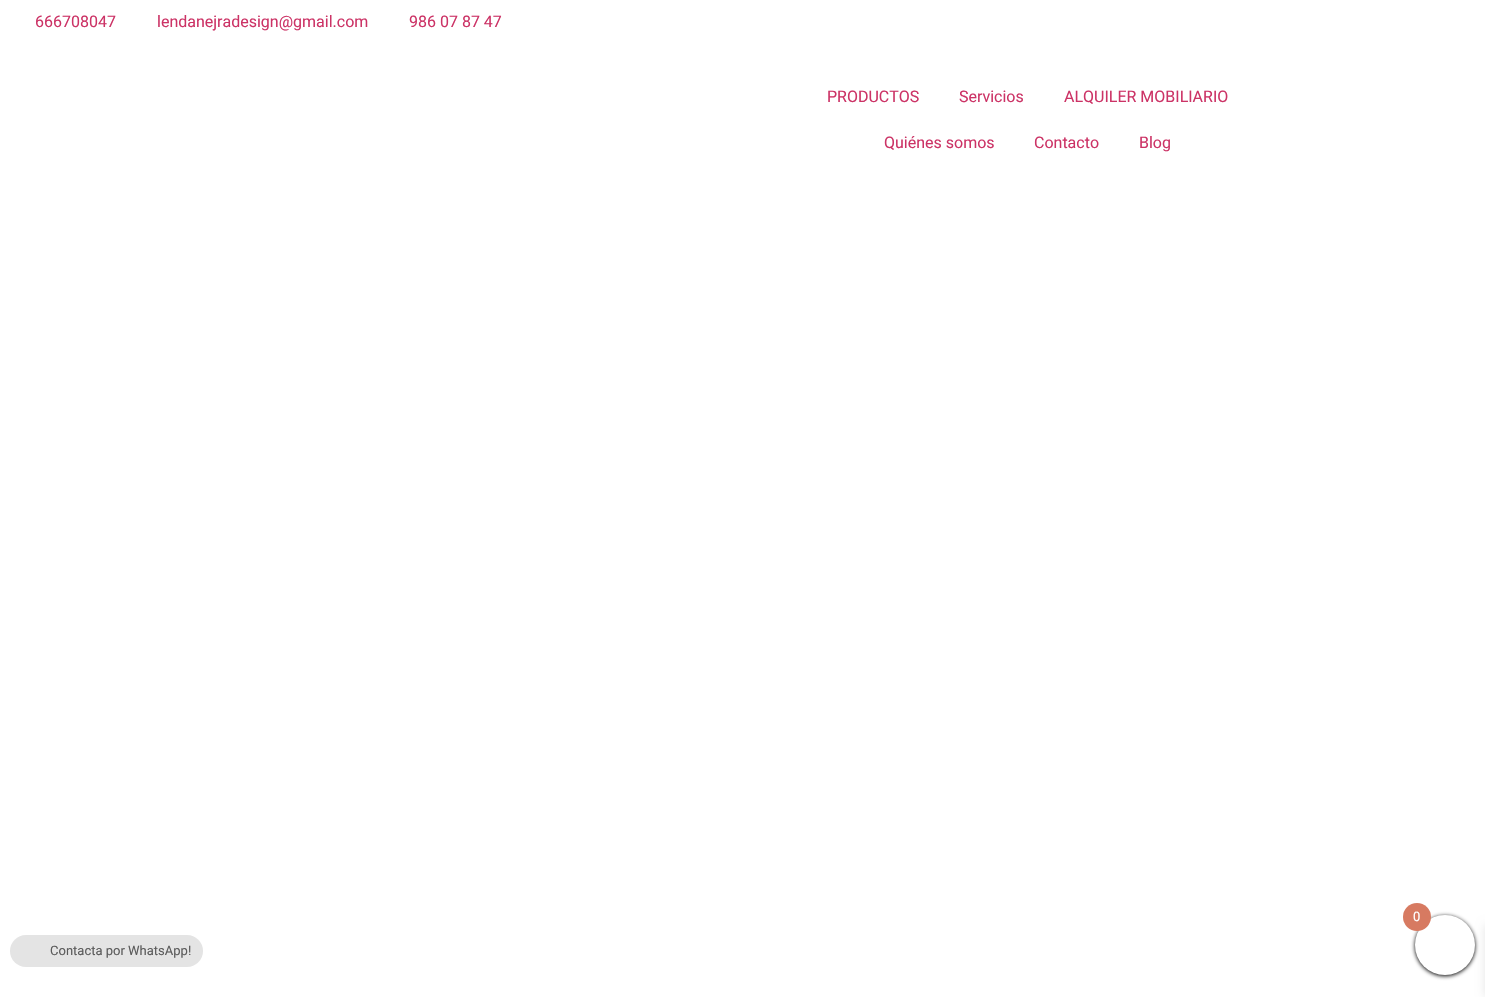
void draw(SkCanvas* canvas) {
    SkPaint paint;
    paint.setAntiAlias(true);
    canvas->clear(0xFFFFFFFF);
    SkFont font1(fontMgr->matchFamilyStyle("Roboto", SkFontStyle::Normal()), 16);
    font1.setSubpixel(true);
    paint.setColor(0xFFCC3366);
    canvas->drawString("666708047", 35, 27, font1, paint);
    canvas->drawString("lendanejradesign@gmail.com", 157, 27, font1, paint);
    canvas->drawString("986 07 87 47", 409, 27, font1, paint);
    canvas->drawString("PRODUCTOS", 827, 102, font1, paint);
    canvas->drawString("Servicios", 959, 102, font1, paint);
    canvas->drawString("ALQUILER MOBILIARIO", 1064, 102, font1, paint);
    canvas->drawString("Quiénes somos", 884, 148, font1, paint);
    canvas->drawString("Contacto", 1034, 148, font1, paint);
    canvas->drawString("Blog", 1139, 148, font1, paint);
    paint.setColor(0xFF000000);
    paint.setMaskFilter(SkMaskFilter::MakeBlur(kNormal_SkBlurStyle, 2));
    canvas->drawRoundRect(SkRect::MakeXYWH(1415, 916, 60, 60), 30, 30, paint);
    paint.setMaskFilter(nullptr);
    paint.setColor(0x1A000000);
    paint.setMaskFilter(SkMaskFilter::MakeBlur(kNormal_SkBlurStyle, 5));
    canvas->drawRect(SkRect::MakeXYWH(1485, 925, 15, 71), paint);
    paint.setMaskFilter(nullptr);
    paint.setColor(0xFFFFFFFF);
    canvas->drawCircle(1445, 945, 30, paint);
    paint.setColor(0xFFD77A61);
    canvas->drawCircle(1417, 917, 14, paint);
    SkFont font2(fontMgr->matchFamilyStyle("Roboto", SkFontStyle::Normal()), 13);
    font2.setSubpixel(true);
    paint.setColor(0xFFFFFFFF);
    canvas->drawString("0", 1413, 921, font2, paint);
    paint.setColor(0xFFE4E4E4);
    canvas->drawRoundRect(SkRect::MakeXYWH(10, 935, 193, 32), 16, 16, paint);
    paint.setColor(0xFF5B5B5B);
    canvas->drawString("Contacta por WhatsApp!", 50, 955, font2, paint);
}
